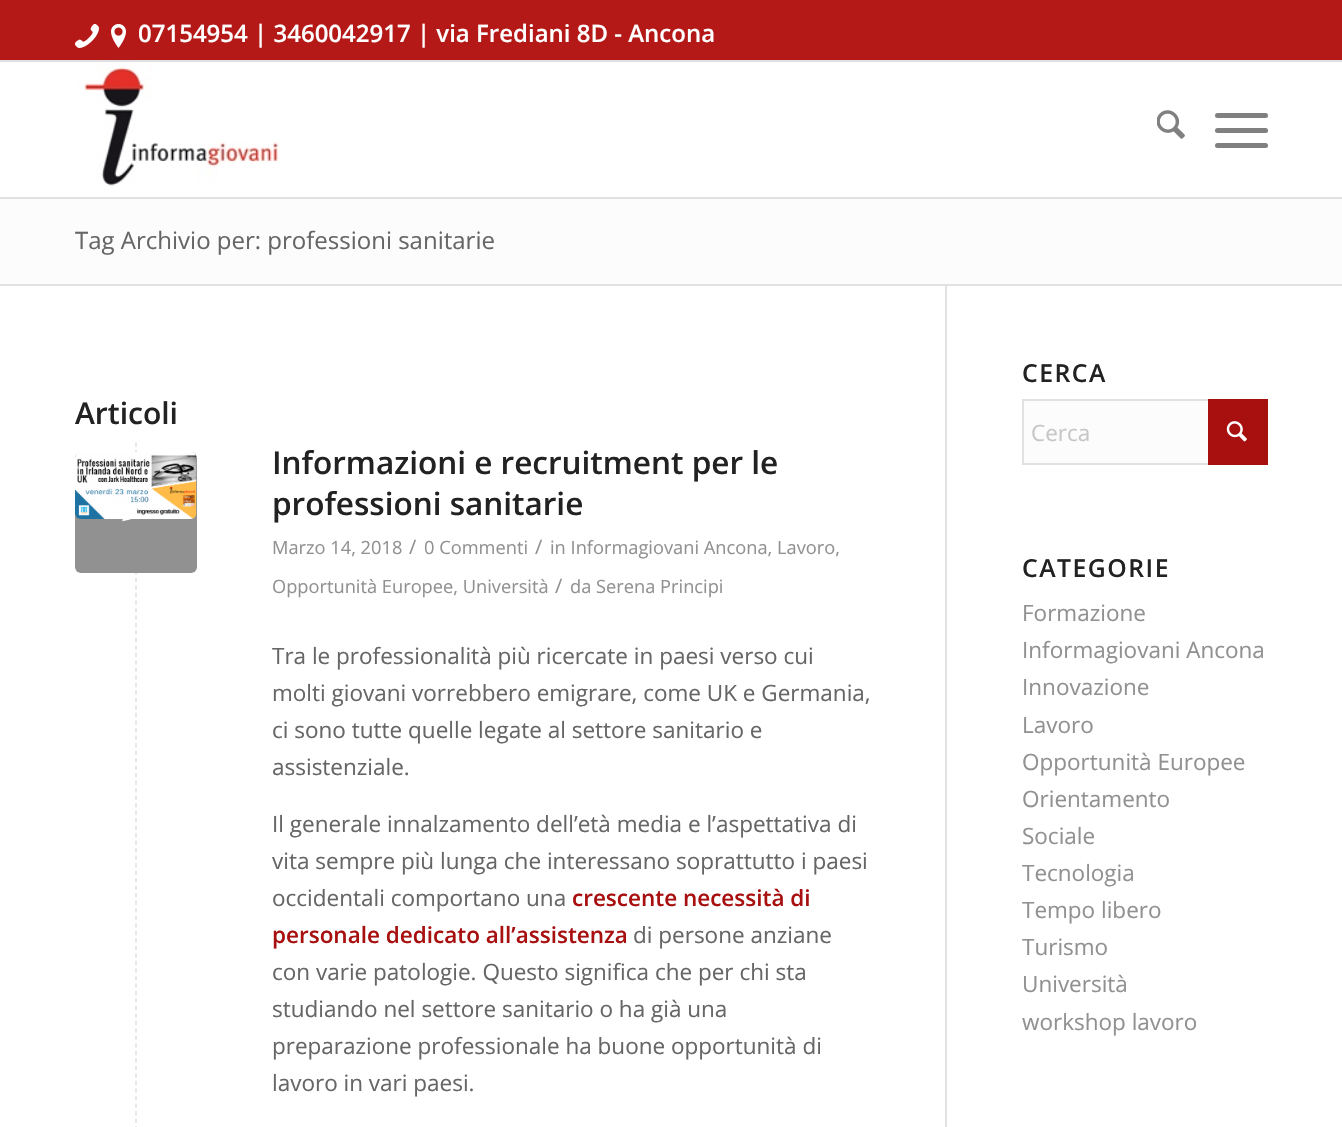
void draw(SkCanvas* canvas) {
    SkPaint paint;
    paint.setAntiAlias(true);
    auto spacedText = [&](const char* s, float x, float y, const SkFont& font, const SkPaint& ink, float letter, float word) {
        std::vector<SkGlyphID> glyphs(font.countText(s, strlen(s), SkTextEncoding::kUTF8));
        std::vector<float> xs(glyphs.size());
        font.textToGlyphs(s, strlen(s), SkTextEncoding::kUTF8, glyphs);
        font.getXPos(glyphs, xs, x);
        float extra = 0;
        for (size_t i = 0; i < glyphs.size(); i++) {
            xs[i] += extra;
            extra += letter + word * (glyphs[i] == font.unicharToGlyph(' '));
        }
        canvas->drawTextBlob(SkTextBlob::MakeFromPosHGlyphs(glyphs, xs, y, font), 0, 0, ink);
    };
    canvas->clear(0xFFFFFFFF);
    paint.setColor(0xFFB51917);
    canvas->drawRect(SkRect::MakeXYWH(0, 0, 1342, 60), paint);
    paint.setColor(0xFFE1E1E1);
    canvas->drawRect(SkRect::MakeXYWH(0, 60, 1342, 2), paint);
    canvas->drawImageRect(SkImages::DeferredFromEncodedData(SkData::MakeFromFileName("img1.png")), SkRect::MakeXYWH(75, 24, 24, 24), SkSamplingOptions());
    canvas->drawImageRect(SkImages::DeferredFromEncodedData(SkData::MakeFromFileName("img2.png")), SkRect::MakeXYWH(111, 24, 15, 24), SkSamplingOptions());
    SkFont font1(fontMgr->matchFamilyStyle("Open Sans", SkFontStyle(600, SkFontStyle::kNormal_Width, SkFontStyle::kUpright_Slant)), 24);
    font1.setSubpixel(true);
    paint.setColor(0xFFFFFFFF);
    canvas->drawString("07154954 | 3460042917 | via Frediani 8D - Ancona", 138, 42, font1, paint);
    paint.setColor(0xFFE1E1E1);
    canvas->drawRect(SkRect::MakeXYWH(0, 197, 1342, 2), paint);
    canvas->drawImageRect(SkImages::DeferredFromEncodedData(SkData::MakeFromFileName("img3.png")), SkRect::MakeXYWH(75, 62, 211, 124), SkSamplingOptions());
    canvas->drawImageRect(SkImages::DeferredFromEncodedData(SkData::MakeFromFileName("img4.png")), SkRect::MakeXYWH(1157, 110, 28, 29), SkSamplingOptions());
    paint.setColor(0xFF808080);
    canvas->drawRoundRect(SkRect::MakeXYWH(1215, 128, 53, 5), 2.5f, 2.5f, paint);
    canvas->drawRoundRect(SkRect::MakeXYWH(1215, 113, 53, 5), 2.5f, 2.5f, paint);
    canvas->drawRoundRect(SkRect::MakeXYWH(1215, 143, 53, 5), 2.5f, 2.5f, paint);
    paint.setColor(0xFFFCFCFC);
    canvas->drawRect(SkRect::MakeXYWH(0, 199, 1342, 85), paint);
    SkFont font2(fontMgr->matchFamilyStyle("Open Sans", SkFontStyle::Normal()), 24);
    font2.setSubpixel(true);
    paint.setColor(0xFF666666);
    canvas->drawString("Tag Archivio per: professioni sanitarie", 75, 249, font2, paint);
    paint.setColor(0xFFE1E1E1);
    canvas->drawRect(SkRect::MakeXYWH(0, 284, 1342, 2), paint);
    canvas->drawRect(SkRect::MakeXYWH(945, 285, 2, 842), paint);
    SkFont font3(fontMgr->matchFamilyStyle("Open Sans", SkFontStyle(600, SkFontStyle::kNormal_Width, SkFontStyle::kUpright_Slant)), 30);
    font3.setSubpixel(true);
    paint.setColor(0xFF222222);
    canvas->drawString("Articoli", 75, 424, font3, paint);
    paint.setStyle(SkPaint::kStroke_Style);
    paint.setStrokeWidth(1.5f);
    paint.setColor(0xFFE1E1E1);
    paint.setPathEffect(SkDashPathEffect::Make({{4.5f, 3.01f}}, 0));
    canvas->drawPath(SkPathBuilder().moveTo(136, 442.5f).lineTo(136, 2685).detach(), paint);
    paint.setPathEffect(nullptr);
    SkFont font4(fontMgr->matchFamilyStyle("Open Sans", SkFontStyle(600, SkFontStyle::kNormal_Width, SkFontStyle::kUpright_Slant)), 31.5f);
    font4.setSubpixel(true);
    paint.setStyle(SkPaint::kFill_Style);
    paint.setColor(0xFF222222);
    canvas->drawString("Informazioni e recruitment per le", 272, 474, font4, paint);
    canvas->drawString("professioni sanitarie", 272, 515, font4, paint);
    SkFont font5(fontMgr->matchFamilyStyle("Open Sans", SkFontStyle::Normal()), 18.25f);
    font5.setSubpixel(true);
    paint.setColor(0xFF919191);
    canvas->drawString("Marzo 14, 2018", 272, 554, font5, paint);
    SkFont font6(fontMgr->matchFamilyStyle("Open Sans", SkFontStyle::Normal()), 20);
    font6.setSubpixel(true);
    canvas->drawString("/", 409, 554, font6, paint);
    canvas->drawString("0 Commenti", 424, 554, font5, paint);
    canvas->drawString("/", 535, 554, font6, paint);
    canvas->drawString("in Informagiovani Ancona, Lavoro,", 550, 554, font5, paint);
    canvas->drawString("Opportunità Europee, Università", 272, 593, font5, paint);
    canvas->drawString("/", 555, 593, font6, paint);
    canvas->drawString("da Serena Principi", 570, 593, font5, paint);
    SkFont font7(fontMgr->matchFamilyStyle("Open Sans", SkFontStyle::Normal()), 22.5f);
    font7.setSubpixel(true);
    paint.setColor(0xFF666666);
    canvas->drawString("Tra le professionalità più ricercate in paesi verso cui", 272, 664, font7, paint);
    canvas->drawString("molti giovani vorrebbero emigrare, come UK e Germania,", 272, 701, font7, paint);
    canvas->drawString("ci sono tutte quelle legate al settore sanitario e", 272, 738, font7, paint);
    canvas->drawString("assistenziale.", 272, 775, font7, paint);
    canvas->drawString("Il generale innalzamento dell’età media e l’aspettativa di", 272, 832, font7, paint);
    canvas->drawString("vita sempre più lunga che interessano soprattutto i paesi", 272, 869, font7, paint);
    canvas->drawString("occidentali comportano una", 272, 906, font7, paint);
    SkFont font8(fontMgr->matchFamilyStyle("Open Sans", SkFontStyle(600, SkFontStyle::kNormal_Width, SkFontStyle::kUpright_Slant)), 22.5f);
    font8.setSubpixel(true);
    paint.setColor(0xFFA81010);
    canvas->drawString("crescente necessità di", 572, 906, font8, paint);
    canvas->drawString("personale dedicato all’assistenza", 272, 943, font8, paint);
    paint.setColor(0xFF666666);
    canvas->drawString("di persone anziane", 633, 943, font7, paint);
    canvas->drawString("con varie patologie. Questo significa che per chi sta", 272, 980, font7, paint);
    canvas->drawString("studiando nel settore sanitario o ha già una", 272, 1017, font7, paint);
    canvas->drawString("preparazione professionale ha buone opportunità di", 272, 1054, font7, paint);
    canvas->drawString("lavoro in vari paesi.", 272, 1091, font7, paint);
    paint.setColor(0xFF919191);
    canvas->drawRoundRect(SkRect::MakeXYWH(75, 452, 122, 121), 6, 6, paint);
    canvas->drawImageRect(SkImages::DeferredFromEncodedData(SkData::MakeFromFileName("img5.png")), SkRect::MakeXYWH(75, 452, 122, 67), SkSamplingOptions());
    canvas->drawImageRect(SkImages::DeferredFromEncodedData(SkData::MakeFromFileName("img6.png")), SkRect::MakeXYWH(122, 519, 9, 3), SkSamplingOptions());
    SkFont font9(fontMgr->matchFamilyStyle("Open Sans", SkFontStyle(600, SkFontStyle::kNormal_Width, SkFontStyle::kUpright_Slant)), 24.75f);
    font9.setSubpixel(true);
    paint.setColor(0xFF222222);
    spacedText("CERCA", 1022, 382, font9, paint, 1.5f, 0);
    paint.setColor(0xFFFCFCFC);
    canvas->drawRect(SkRect::MakeXYWH(1024, 401, 184, 62), paint);
    paint.setStyle(SkPaint::kStroke_Style);
    paint.setStrokeWidth(2);
    paint.setColor(0xFFE1E1E1);
    canvas->drawRect(SkRect::MakeXYWH(1023, 400, 244, 64), paint);
    paint.setStyle(SkPaint::kFill_Style);
    paint.setColor(0xFFA81010);
    canvas->drawRect(SkRect::MakeXYWH(1208, 399, 60, 66), paint);
    paint.setColor(0xFFC7C7C7);
    canvas->drawString("Cerca", 1031, 441, font7, paint);
    canvas->drawImageRect(SkImages::DeferredFromEncodedData(SkData::MakeFromFileName("img7.png")), SkRect::MakeXYWH(1226, 421, 21, 21), SkSamplingOptions());
    paint.setColor(0xFF222222);
    spacedText("CATEGORIE", 1022, 577, font9, paint, 1.5f, 0);
    paint.setColor(0xFF919191);
    canvas->drawString("Formazione", 1022, 621, font7, paint);
    canvas->drawString("Informagiovani Ancona", 1022, 658, font7, paint);
    canvas->drawString("Innovazione", 1022, 695, font7, paint);
    canvas->drawString("Lavoro", 1022, 733, font7, paint);
    canvas->drawString("Opportunità Europee", 1022, 770, font7, paint);
    canvas->drawString("Orientamento", 1022, 807, font7, paint);
    canvas->drawString("Sociale", 1022, 844, font7, paint);
    canvas->drawString("Tecnologia", 1022, 881, font7, paint);
    canvas->drawString("Tempo libero", 1022, 918, font7, paint);
    canvas->drawString("Turismo", 1022, 955, font7, paint);
    canvas->drawString("Università", 1022, 992, font7, paint);
    canvas->drawString("workshop lavoro", 1022, 1030, font7, paint);
}
